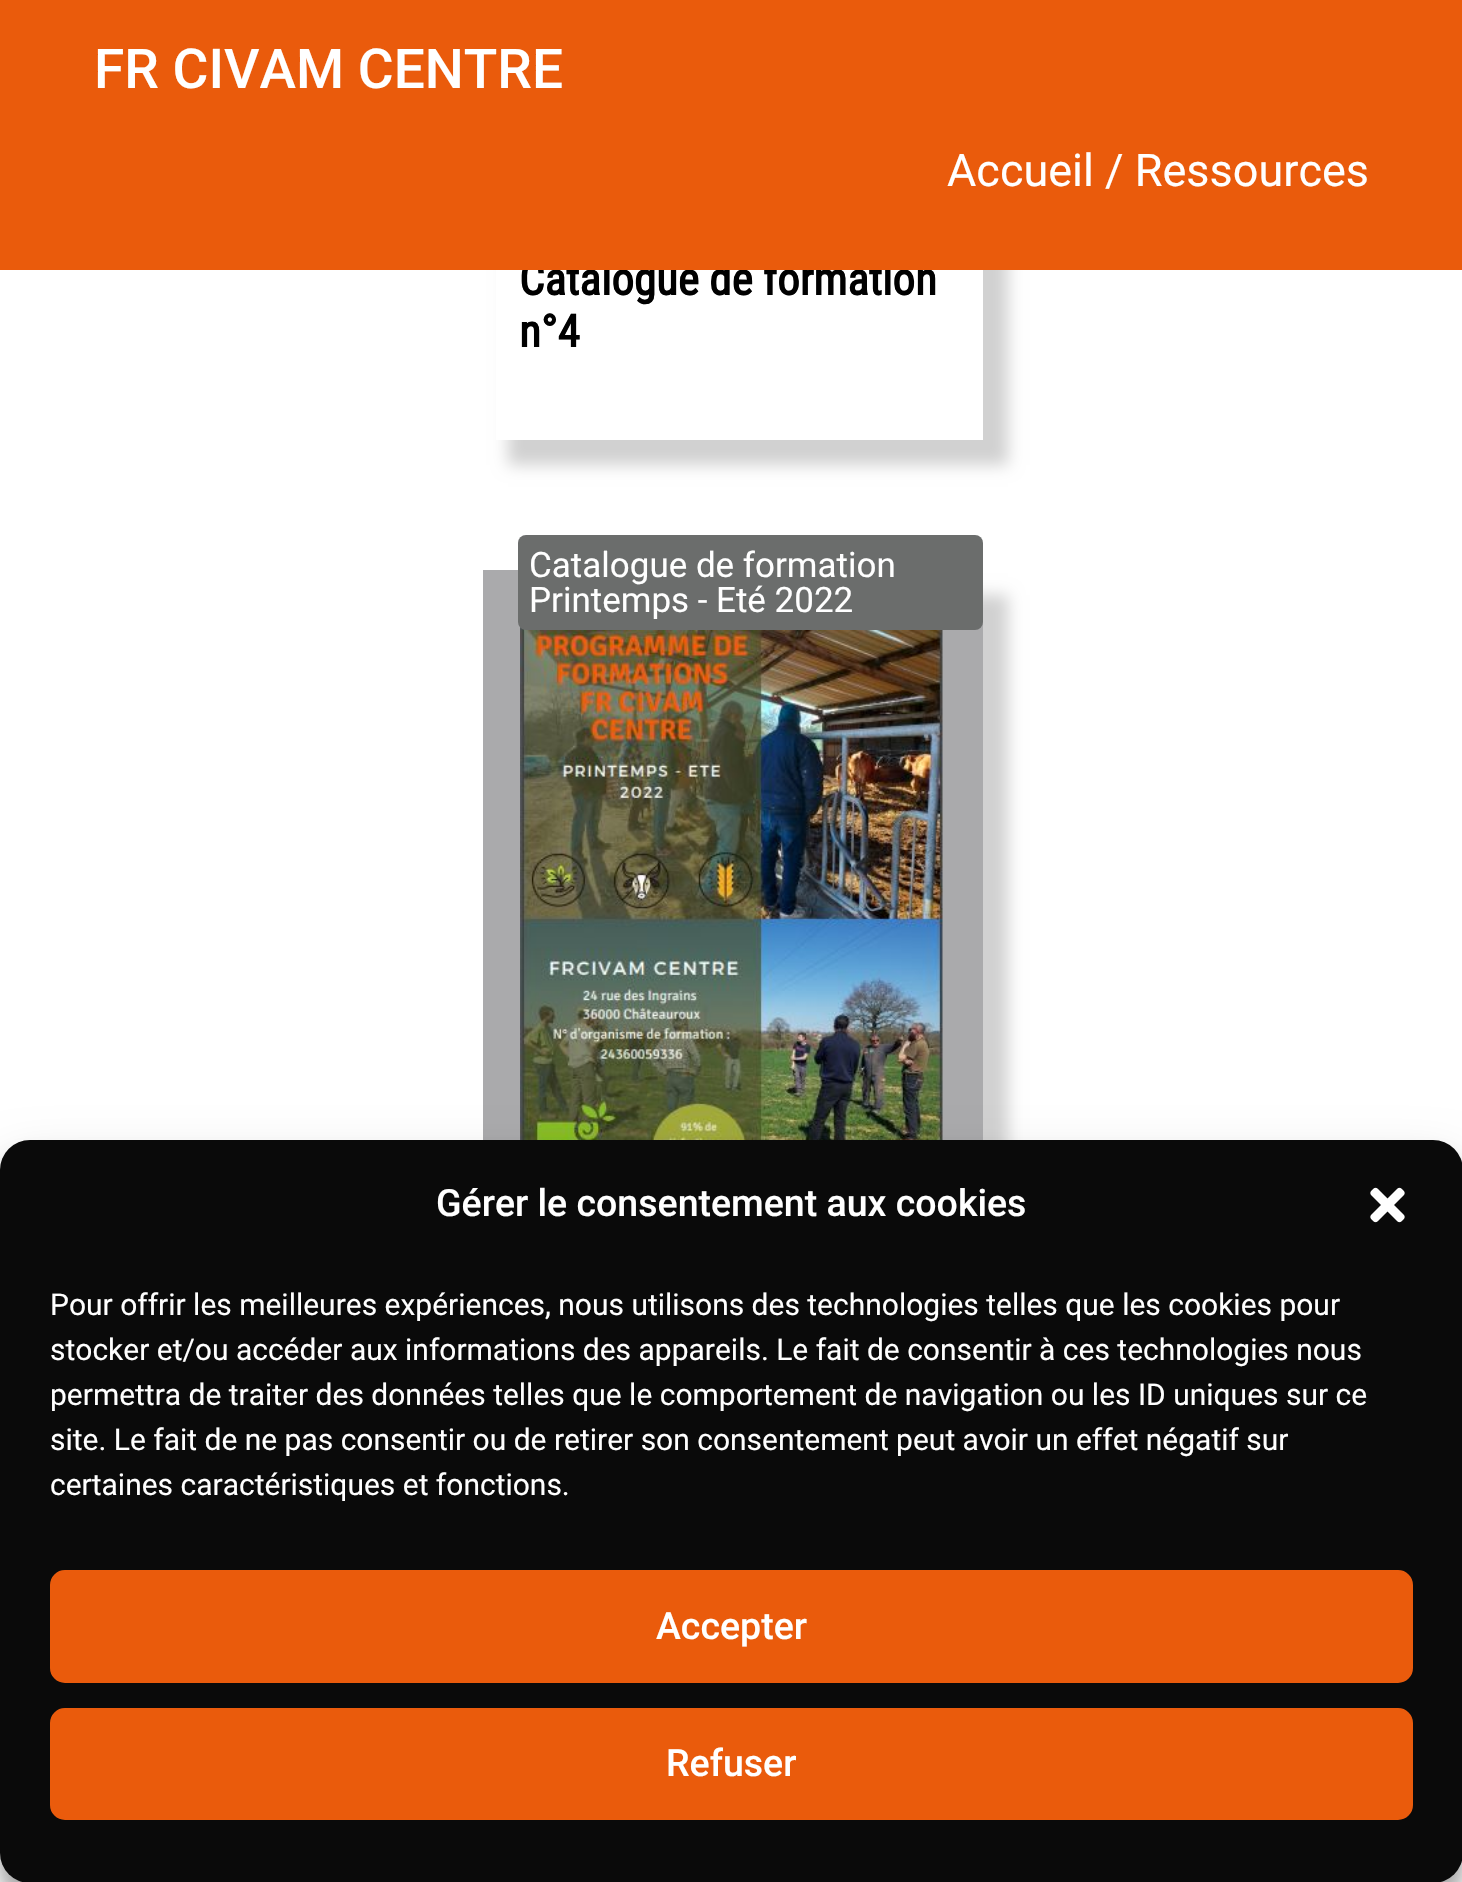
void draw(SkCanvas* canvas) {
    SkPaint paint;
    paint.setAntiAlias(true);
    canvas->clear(0xFFFFFFFF);
    paint.setColor(0x2E000000);
    paint.setMaskFilter(SkMaskFilter::MakeBlur(kNormal_SkBlurStyle, 7.5f));
    canvas->drawRect(SkRect::MakeXYWH(508, -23, 500, 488), paint);
    paint.setMaskFilter(nullptr);
    paint.setColor(0xFFFFFFFF);
    canvas->drawRect(SkRect::MakeXYWH(496, 270, 487, 170), paint);
    SkFont font1(fontMgr->matchFamilyStyle("Roboto Condensed", SkFontStyle::Bold()), 45);
    font1.setSubpixel(true);
    paint.setColor(0xFF000000);
    canvas->drawString("Catalogue de formation", 519, 295, font1, paint);
    paint.setColor(0xFFEA5B0C);
    canvas->drawRect(SkRect::MakeXYWH(0, 0, 1462, 270), paint);
    SkFont font2(fontMgr->matchFamilyStyle("Roboto", SkFontStyle(500, SkFontStyle::kNormal_Width, SkFontStyle::kUpright_Slant)), 55);
    font2.setSubpixel(true);
    paint.setColor(0xFFFFFFFF);
    canvas->drawString("FR CIVAM CENTRE", 94, 88, font2, paint);
    SkFont font3(fontMgr->matchFamilyStyle("Roboto", SkFontStyle::Normal()), 45);
    font3.setSubpixel(true);
    canvas->drawString("Accueil / Ressources", 947, 186, font3, paint);
    paint.setColor(0xFF000000);
    canvas->drawString("n°4", 519, 347, font1, paint);
    paint.setColor(0x2E000000);
    paint.setMaskFilter(SkMaskFilter::MakeBlur(kNormal_SkBlurStyle, 7.5f));
    canvas->drawRect(SkRect::MakeXYWH(508, 595, 500, 898), paint);
    paint.setMaskFilter(nullptr);
    paint.setColor(0xFFAAAAAC);
    canvas->drawRect(SkRect::MakeXYWH(483, 570, 500, 570), paint);
    canvas->drawImageRect(SkImages::DeferredFromEncodedData(SkData::MakeFromFileName("img1.png")), SkRect::MakeXYWH(520, 627, 423, 513), SkSamplingOptions());
    paint.setColor(0xFF6B6D6C);
    canvas->drawRoundRect(SkRect::MakeXYWH(518, 535, 465, 95), 8, 8, paint);
    SkFont font4(fontMgr->matchFamilyStyle("Roboto", SkFontStyle::Normal()), 35);
    font4.setSubpixel(true);
    paint.setColor(0xFFFFFFFF);
    canvas->drawString("Catalogue de formation", 529, 577, font4, paint);
    canvas->drawString("Printemps - Eté 2022", 529, 612, font4, paint);
    paint.setColor(0x3B000000);
    paint.setMaskFilter(SkMaskFilter::MakeBlur(kNormal_SkBlurStyle, 7.5f));
    canvas->drawRoundRect(SkRect::MakeXYWH(0, 1155, 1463, 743), 30, 30, paint);
    paint.setMaskFilter(nullptr);
    paint.setColor(0x30000000);
    paint.setMaskFilter(SkMaskFilter::MakeBlur(kNormal_SkBlurStyle, 25));
    canvas->drawRoundRect(SkRect::MakeXYWH(0, 1165, 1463, 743), 30, 30, paint);
    paint.setMaskFilter(nullptr);
    paint.setColor(0xFF0A0A0A);
    canvas->drawRoundRect(SkRect::MakeXYWH(0, 1140, 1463, 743), 30, 30, paint);
    SkFont font5(fontMgr->matchFamilyStyle("Roboto", SkFontStyle(500, SkFontStyle::kNormal_Width, SkFontStyle::kUpright_Slant)), 37.5f);
    font5.setSubpixel(true);
    paint.setColor(0xFFFFFFFF);
    canvas->drawString("Gérer le consentement aux cookies", 436, 1216, font5, paint);
    canvas->drawImageRect(SkImages::DeferredFromEncodedData(SkData::MakeFromFileName("img2.png")), SkRect::MakeXYWH(1370, 1187, 35, 36), SkSamplingOptions());
    SkFont font6(fontMgr->matchFamilyStyle("Roboto", SkFontStyle::Normal()), 30);
    font6.setSubpixel(true);
    canvas->drawString("Pour offrir les meilleures expériences, nous utilisons des technologies telles que les cookies pour", 50, 1315, font6, paint);
    canvas->drawString("stocker et/ou accéder aux informations des appareils. Le fait de consentir à ces technologies nous", 50, 1360, font6, paint);
    canvas->drawString("permettra de traiter des données telles que le comportement de navigation ou les ID uniques sur ce", 50, 1405, font6, paint);
    canvas->drawString("site. Le fait de ne pas consentir ou de retirer son consentement peut avoir un effet négatif sur", 50, 1450, font6, paint);
    canvas->drawString("certaines caractéristiques et fonctions.", 50, 1495, font6, paint);
    paint.setColor(0xFFEA5B0C);
    canvas->drawRoundRect(SkRect::MakeXYWH(51.5f, 1571.5f, 1360, 110), 13.5f, 13.5f, paint);
    paint.setStyle(SkPaint::kStroke_Style);
    paint.setStrokeWidth(3);
    canvas->drawRoundRect(SkRect::MakeXYWH(51.5f, 1571.5f, 1360, 110), 13.5f, 13.5f, paint);
    paint.setStyle(SkPaint::kFill_Style);
    paint.setColor(0xFFFFFFFF);
    canvas->drawString("Accepter", 656, 1639, font5, paint);
    paint.setColor(0xFFEA5B0C);
    canvas->drawRoundRect(SkRect::MakeXYWH(51.5f, 1709.5f, 1360, 109), 13.5f, 13.5f, paint);
    paint.setStyle(SkPaint::kStroke_Style);
    canvas->drawRoundRect(SkRect::MakeXYWH(51.5f, 1709.5f, 1360, 109), 13.5f, 13.5f, paint);
    paint.setStyle(SkPaint::kFill_Style);
    paint.setColor(0xFFFFFFFF);
    canvas->drawString("Refuser", 666, 1776, font5, paint);
}
